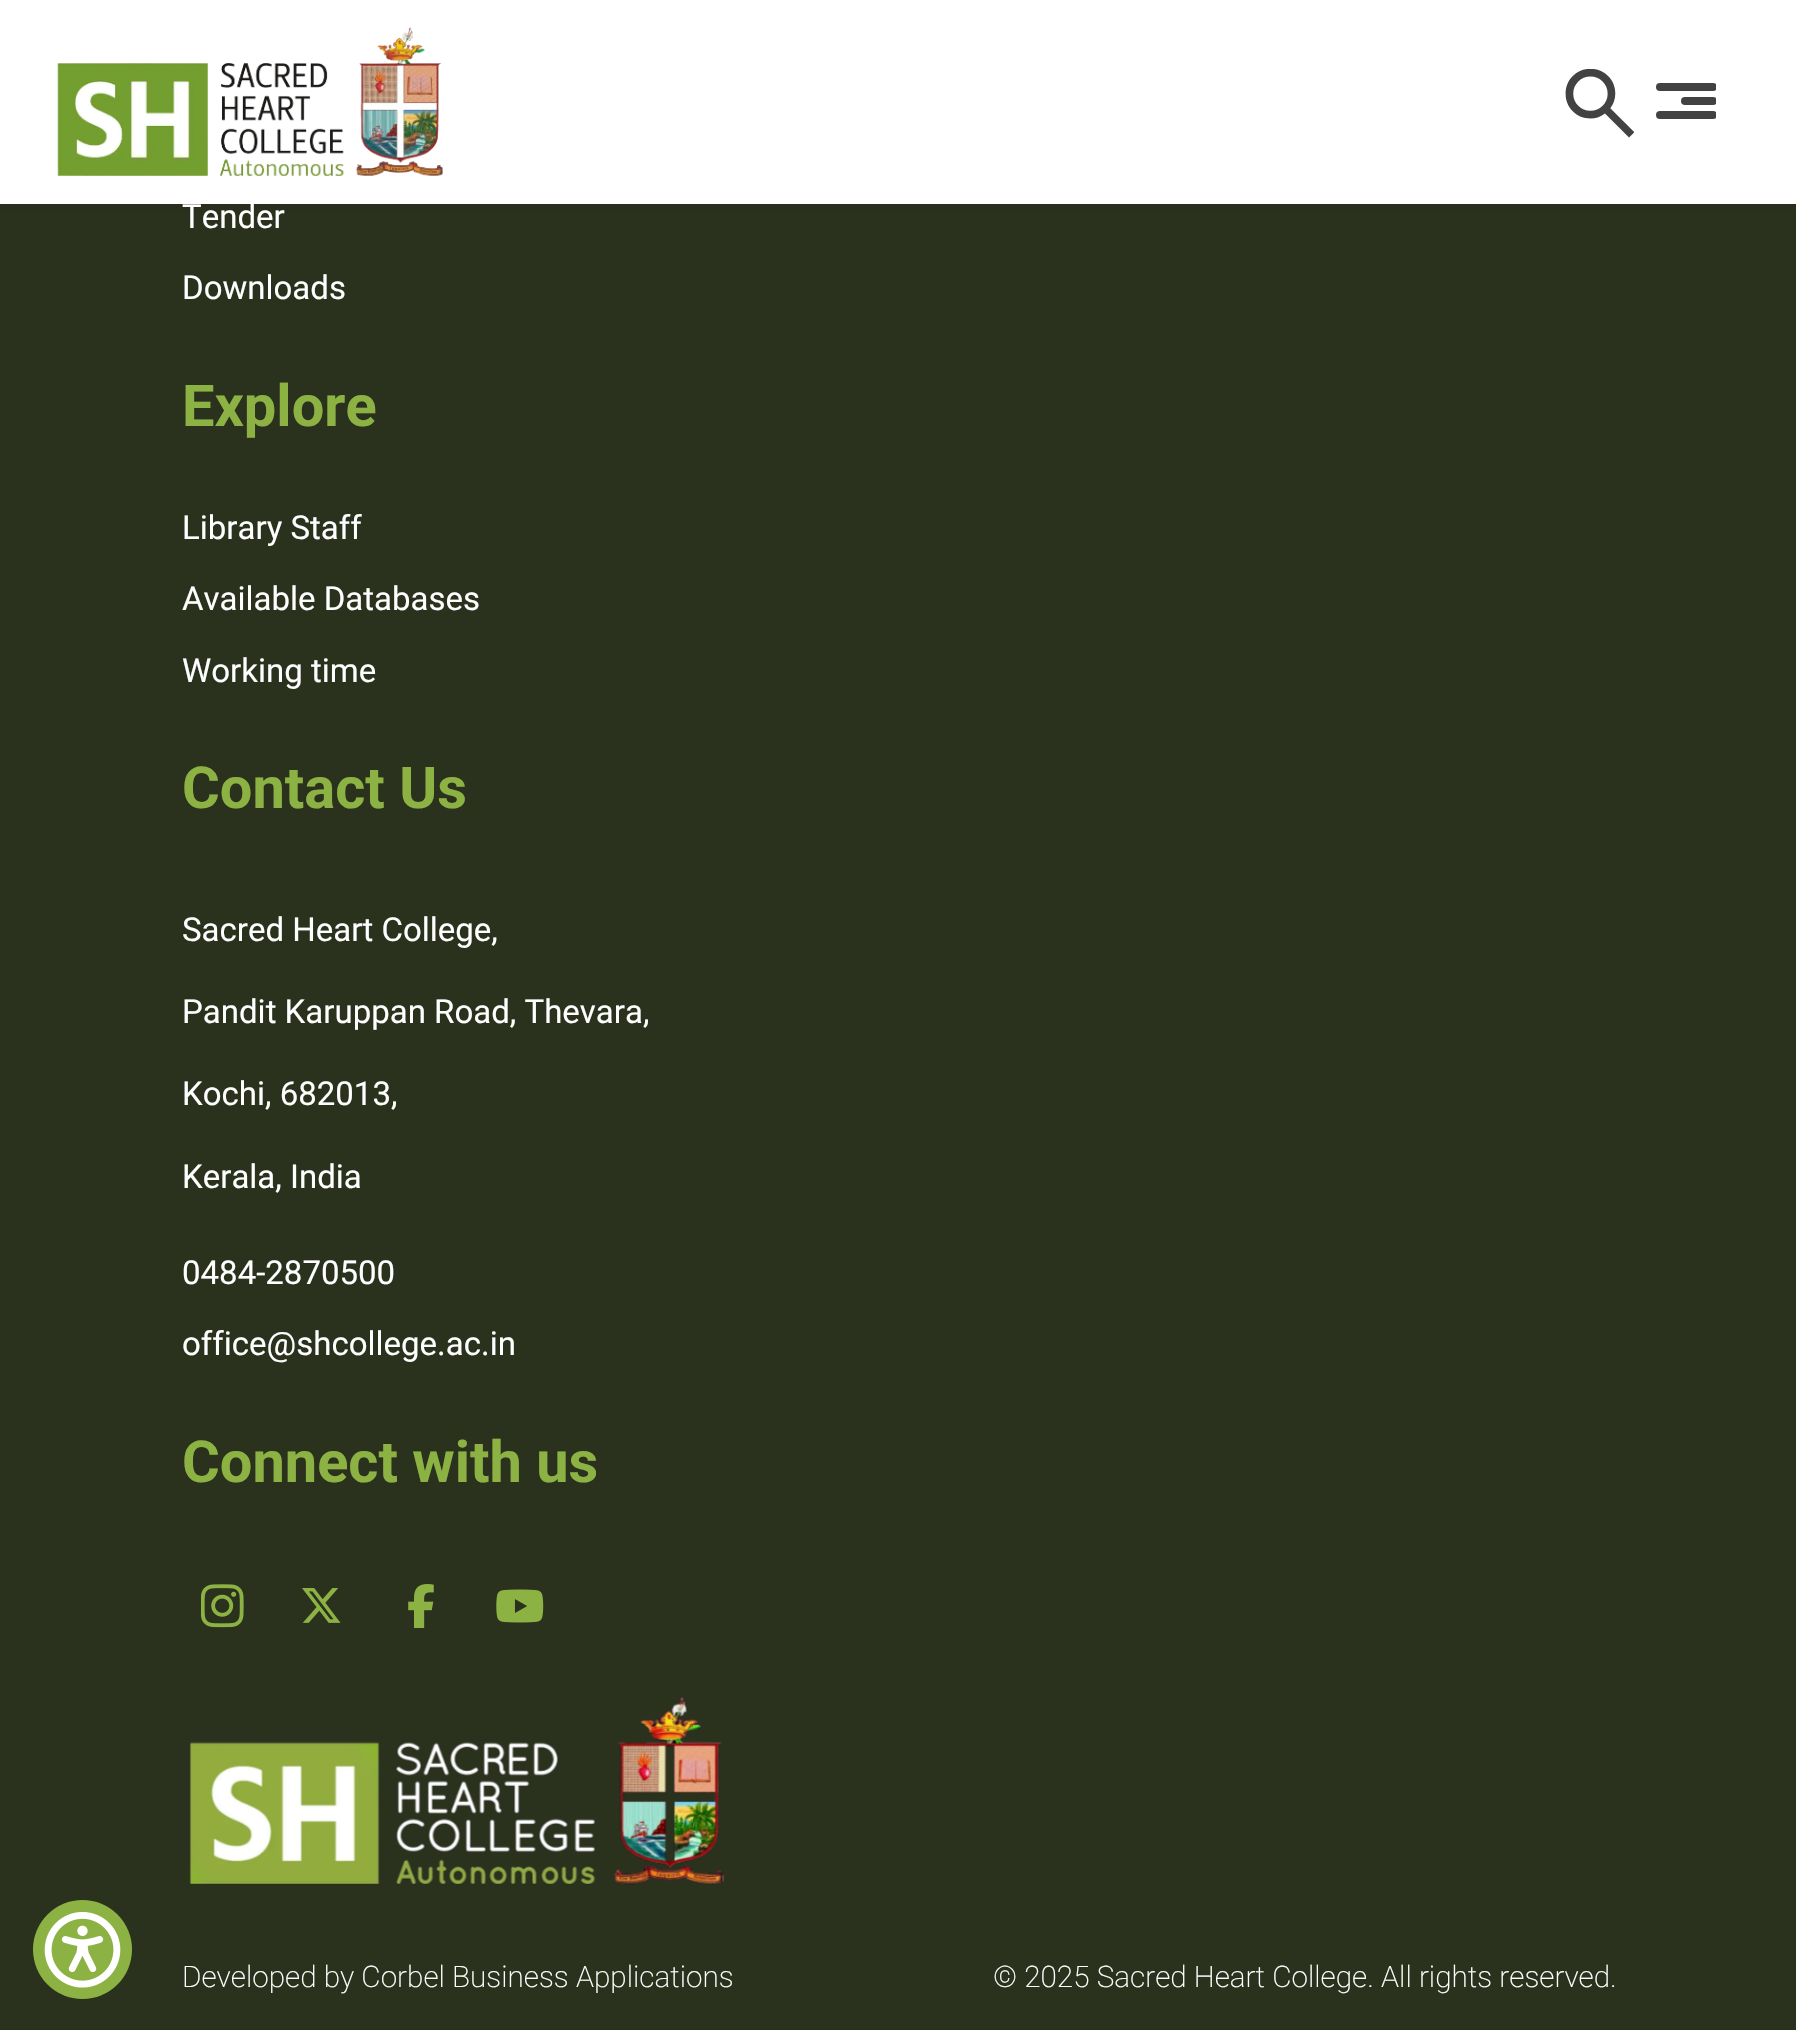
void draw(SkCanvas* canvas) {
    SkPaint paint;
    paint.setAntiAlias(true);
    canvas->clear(0xFF2A311D);
    paint.setColor(0xFF8DB244);
    canvas->drawCircle(82.5f, 1949.5f, 49.5f, paint);
    canvas->drawImageRect(SkImages::DeferredFromEncodedData(SkData::MakeFromFileName("img1.png")), SkRect::MakeXYWH(44, 1911, 77, 77), SkSamplingOptions());
    paint.setColor(0x12000000);
    paint.setMaskFilter(SkMaskFilter::MakeBlur(kNormal_SkBlurStyle, 4));
    canvas->drawRect(SkRect::MakeXYWH(0, 6, 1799, 203), paint);
    paint.setMaskFilter(nullptr);
    paint.setColor(0xFFFFFFFF);
    canvas->drawRect(SkRect::MakeXYWH(0, 0, 1796, 204), paint);
    canvas->drawImageRect(SkImages::DeferredFromEncodedData(SkData::MakeFromFileName("img2.png")), SkRect::MakeXYWH(57, 27, 386, 149), SkSamplingOptions());
    canvas->drawImageRect(SkImages::DeferredFromEncodedData(SkData::MakeFromFileName("img3.png")), SkRect::MakeXYWH(1565, 69, 69, 69), SkSamplingOptions());
    canvas->save();
    canvas->clipRect(SkRect::MakeXYWH(1656, 83, 60, 38));
    paint.setColor(0xFF424242);
    canvas->drawRoundRect(SkRect::MakeXYWH(1656, 83, 61, 8), 4, 4, paint);
    canvas->drawRoundRect(SkRect::MakeXYWH(1681, 97, 36, 8), 4, 4, paint);
    canvas->drawRoundRect(SkRect::MakeXYWH(1656, 111, 61, 8), 4, 4, paint);
    canvas->restore();
    SkFont font1(fontMgr->matchFamilyStyle("Roboto", SkFontStyle::Normal()), 33);
    font1.setSubpixel(true);
    paint.setColor(0xFFFFFFFF);
    canvas->drawString("Tender", 182, 228, font1, paint);
    canvas->drawString("Downloads", 182, 299, font1, paint);
    SkFont font2(fontMgr->matchFamilyStyle("Roboto", SkFontStyle::Bold()), 57.75f);
    font2.setSubpixel(true);
    paint.setColor(0xFF8DB244);
    canvas->drawString("Explore", 182, 426, font2, paint);
    paint.setColor(0xFFFFFFFF);
    canvas->drawString("Library Staff", 182, 539, font1, paint);
    canvas->drawString("Available Databases", 182, 610, font1, paint);
    canvas->drawString("Working time", 182, 682, font1, paint);
    paint.setColor(0xFF8DB244);
    canvas->drawString("Contact Us", 182, 808, font2, paint);
    paint.setColor(0xFFFFFFFF);
    canvas->drawString("Sacred Heart College,", 182, 941, font1, paint);
    canvas->drawString("Pandit Karuppan Road, Thevara,", 182, 1023, font1, paint);
    canvas->drawString("Kochi, 682013,", 182, 1105, font1, paint);
    canvas->drawString("Kerala, India", 182, 1188, font1, paint);
    canvas->drawString("0484-2870500", 182, 1284, font1, paint);
    canvas->drawString("office@shcollege.ac.in", 182, 1355, font1, paint);
    paint.setColor(0xFF8DB244);
    canvas->drawString("Connect with us", 182, 1482, font2, paint);
    canvas->drawImageRect(SkImages::DeferredFromEncodedData(SkData::MakeFromFileName("img4.png")), SkRect::MakeXYWH(201, 1584, 43, 44), SkSamplingOptions());
    canvas->drawImageRect(SkImages::DeferredFromEncodedData(SkData::MakeFromFileName("img5.png")), SkRect::MakeXYWH(302, 1588, 39, 35), SkSamplingOptions());
    canvas->drawImageRect(SkImages::DeferredFromEncodedData(SkData::MakeFromFileName("img6.png")), SkRect::MakeXYWH(408, 1584, 26, 44), SkSamplingOptions());
    canvas->drawImageRect(SkImages::DeferredFromEncodedData(SkData::MakeFromFileName("img7.png")), SkRect::MakeXYWH(496, 1589, 48, 34), SkSamplingOptions());
    canvas->drawImageRect(SkImages::DeferredFromEncodedData(SkData::MakeFromFileName("img8.png")), SkRect::MakeXYWH(189, 1697, 535, 188), SkSamplingOptions());
    SkFont font3(fontMgr->matchFamilyStyle("Roboto", SkFontStyle(200, SkFontStyle::kNormal_Width, SkFontStyle::kUpright_Slant)), 29.7f);
    font3.setSubpixel(true);
    paint.setColor(0xFFFFFFFF);
    canvas->drawString("Developed by Corbel Business Applications", 182, 1987, font3, paint);
    canvas->drawString("© 2025 Sacred Heart College. All rights reserved.", 993, 1987, font3, paint);
}
